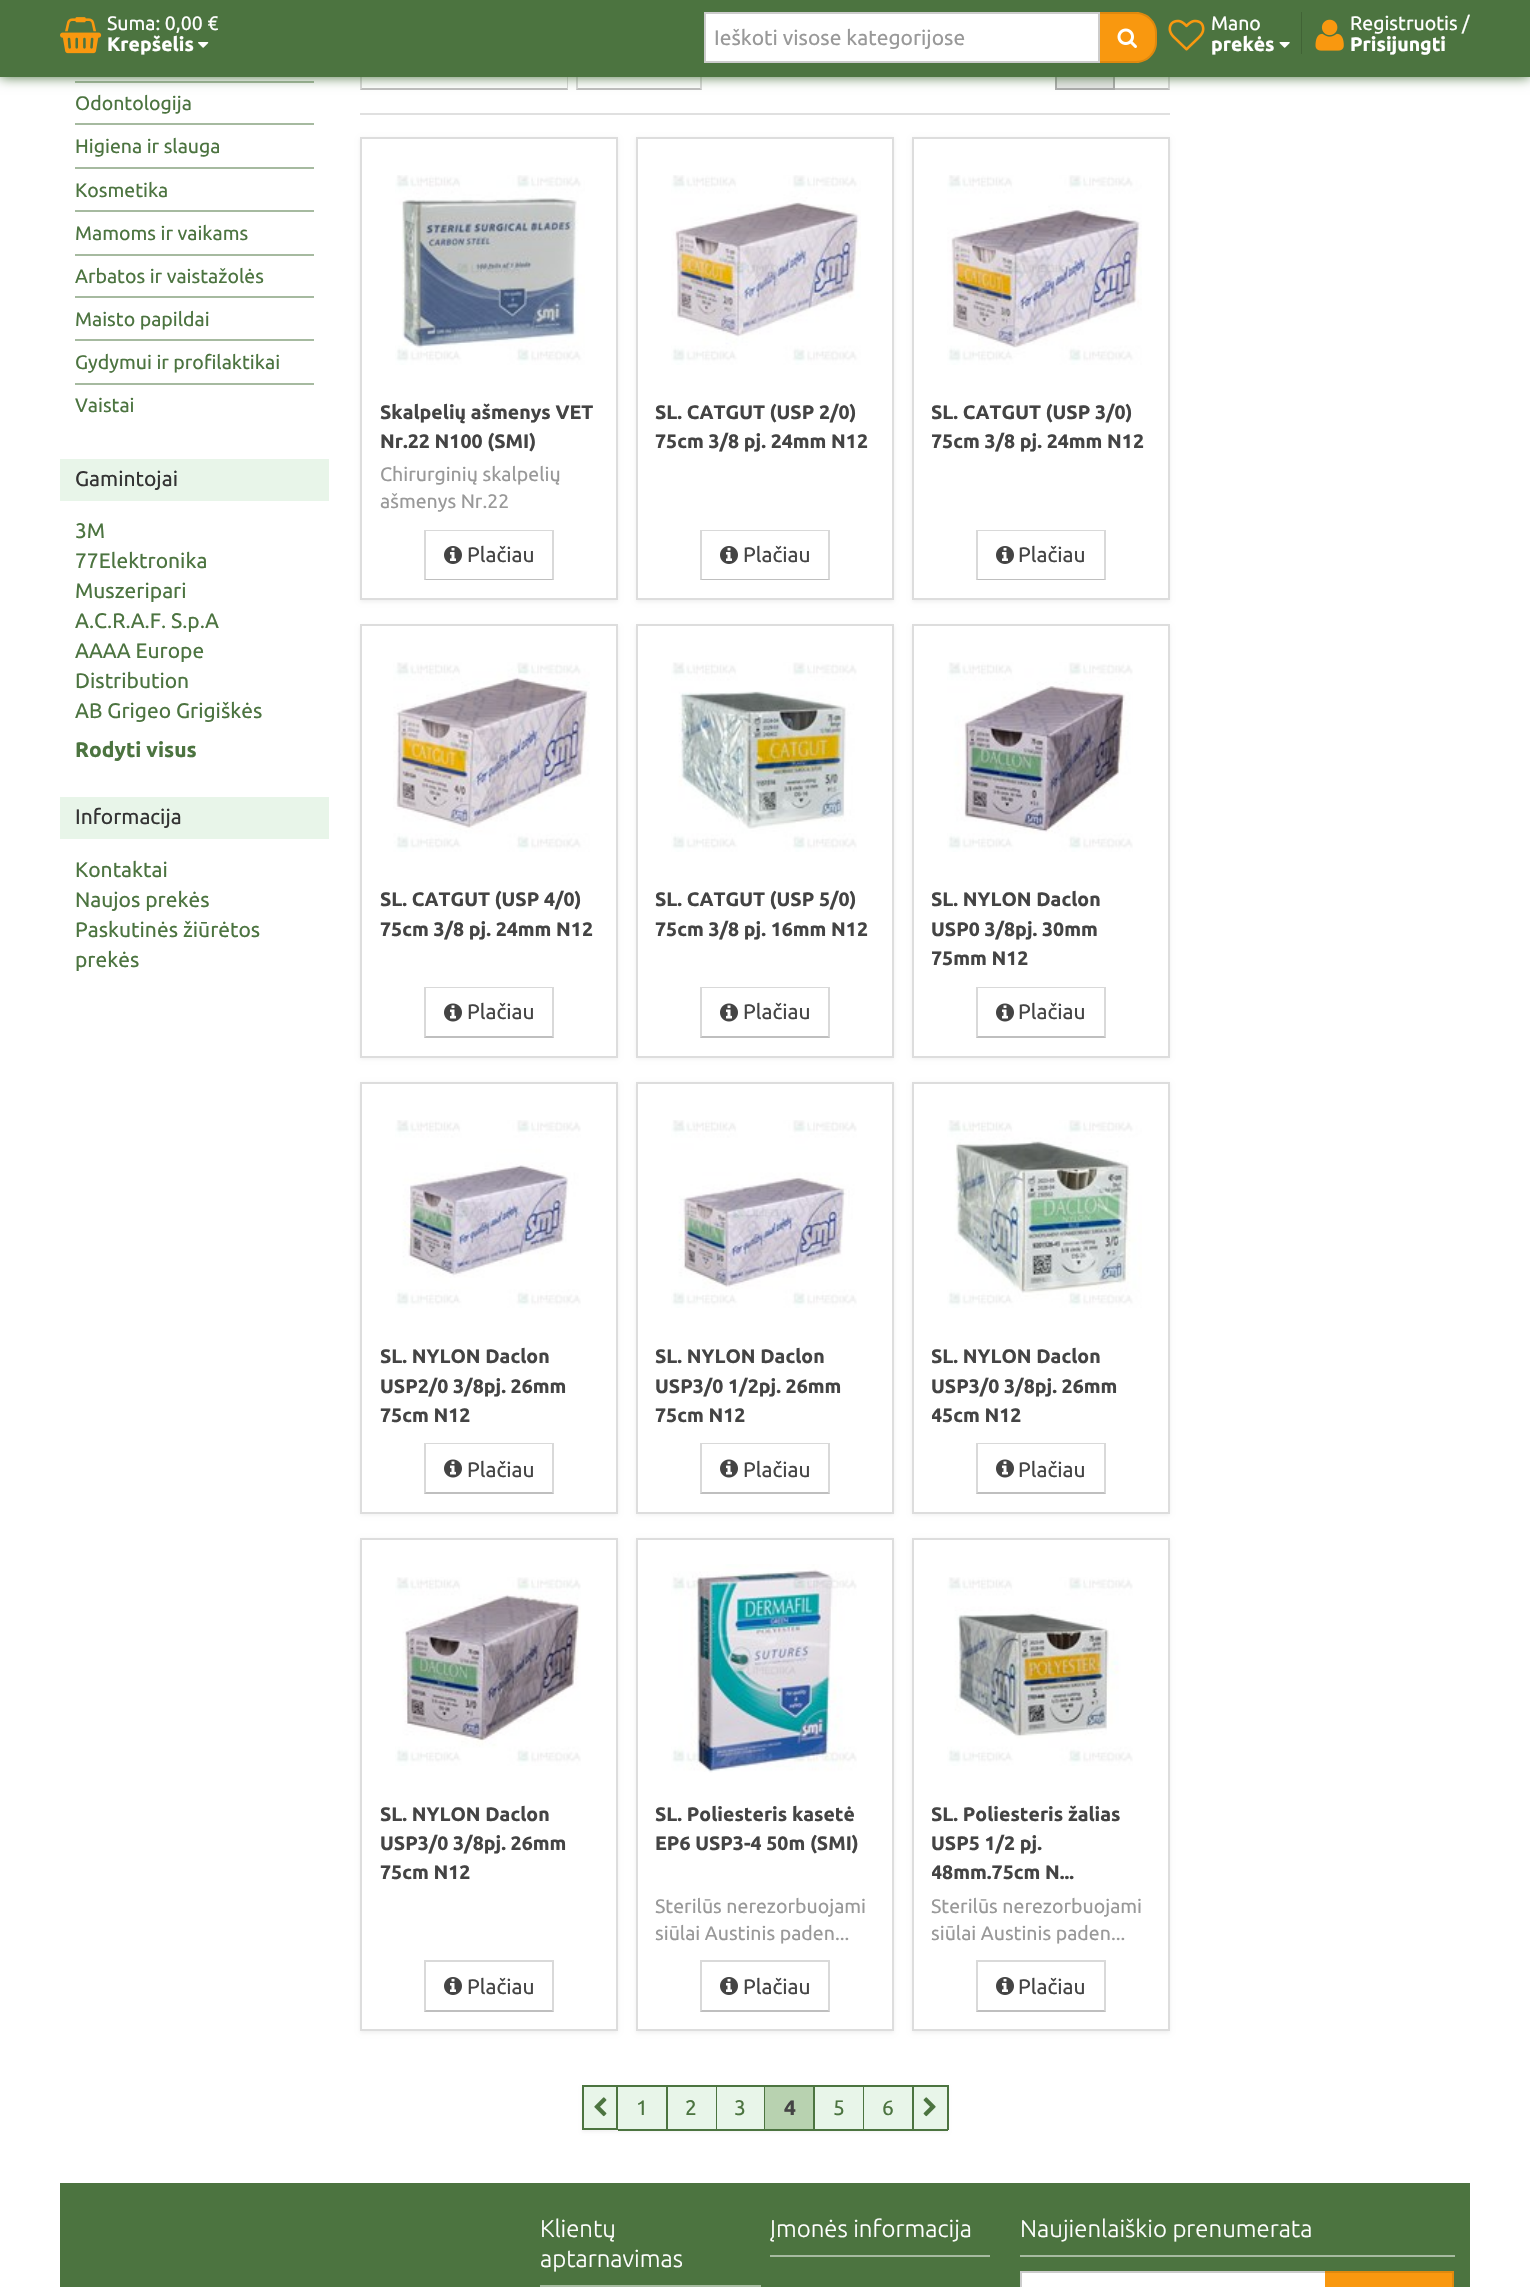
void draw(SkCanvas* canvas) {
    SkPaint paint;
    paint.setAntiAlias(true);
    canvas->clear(0xFFFFFFFF);
    paint.setColor(0xFFA6BAA0);
    canvas->drawRect(SkRect::MakeXYWH(75, 81, 239, 2), paint);
    paint.setColor(0x26000000);
    canvas->drawPath(SkPathBuilder().moveTo(568, 39).lineTo(568, 90).lineTo(567, 88).lineTo(567, 40).close().detach(), paint);
    paint.setColor(0x40000000);
    canvas->drawPath(SkPathBuilder().moveTo(568, 90).lineTo(360, 90).lineTo(362, 88).lineTo(567, 88).close().detach(), paint);
    paint.setColor(0x26000000);
    canvas->drawPath(SkPathBuilder().moveTo(360, 90).lineTo(360, 39).lineTo(362, 40).lineTo(362, 88).close().detach(), paint);
    canvas->drawPath(SkPathBuilder().moveTo(702, 39).lineTo(702, 90).lineTo(700, 88).lineTo(700, 40).close().detach(), paint);
    paint.setColor(0x40000000);
    canvas->drawPath(SkPathBuilder().moveTo(702, 90).lineTo(576, 90).lineTo(578, 88).lineTo(700, 88).close().detach(), paint);
    paint.setColor(0x26000000);
    canvas->drawPath(SkPathBuilder().moveTo(576, 90).lineTo(576, 39).lineTo(578, 40).lineTo(578, 88).close().detach(), paint);
    paint.setColor(0xFFE5E5E5);
    canvas->drawRect(SkRect::MakeXYWH(1057, 77, 56, 11), paint);
    paint.setColor(0x26000000);
    canvas->drawPath(SkPathBuilder().moveTo(1170, 39).lineTo(1170, 90).lineTo(1168, 88).lineTo(1168, 40).close().detach(), paint);
    paint.setColor(0x40000000);
    canvas->drawPath(SkPathBuilder().moveTo(1170, 90).lineTo(1113, 90).lineTo(1114, 88).lineTo(1168, 88).close().detach(), paint);
    paint.setStyle(SkPaint::kStroke_Style);
    paint.setStrokeWidth(2);
    paint.setColor(0xFFACACAC);
    canvas->drawRect(SkRect::MakeXYWH(1056, 40, 58, 49), paint);
    paint.setStyle(SkPaint::kFill_Style);
    paint.setColor(0xFF4C7440);
    paint.setMaskFilter(SkMaskFilter::MakeBlur(kNormal_SkBlurStyle, 6));
    canvas->drawRect(SkRect::MakeXYWH(0, 0, 1530, 77), paint);
    paint.setMaskFilter(nullptr);
    canvas->drawRect(SkRect::MakeXYWH(0, 0, 1530, 77), paint);
    canvas->drawImageRect(SkImages::DeferredFromEncodedData(SkData::MakeFromFileName("img1.png")), SkRect::MakeXYWH(60, 17, 42, 37), SkSamplingOptions());
    SkFont font1(fontMgr->matchFamilyStyle("Ubuntu", SkFontStyle::Normal()), 19.5f);
    font1.setSubpixel(true);
    paint.setColor(0xFFFFFFFF);
    canvas->drawString("Suma: 0,00 €", 107, 30, font1, paint);
    SkFont font2(fontMgr->matchFamilyStyle("Ubuntu", SkFontStyle::Bold()), 19.5f);
    font2.setSubpixel(true);
    canvas->drawString("Krepšelis", 107, 51, font2, paint);
    canvas->drawImageRect(SkImages::DeferredFromEncodedData(SkData::MakeFromFileName("img2.png")), SkRect::MakeXYWH(198, 42, 11, 6), SkSamplingOptions());
    paint.setColor(0xFFF9980F);
    canvas->drawPath(SkPathBuilder().moveTo(1098, 12).lineTo(1136, 12).cubicTo(1147.5f, 12, 1157, 21.5f, 1157, 33).lineTo(1157, 42).cubicTo(1157, 53.5f, 1147.5f, 63, 1136, 63).lineTo(1098, 63).close().detach(), paint);
    paint.setStyle(SkPaint::kStroke_Style);
    paint.setColor(0x1A000000);
    canvas->drawPath(SkPathBuilder().moveTo(1099, 13).lineTo(1136, 13).cubicTo(1147, 13, 1156, 22, 1156, 33).lineTo(1156, 42).cubicTo(1156, 53, 1147, 62, 1136, 62).lineTo(1099, 62).close().detach(), paint);
    paint.setStyle(SkPaint::kFill_Style);
    paint.setColor(0xFFFFFFFF);
    canvas->drawRect(SkRect::MakeXYWH(705, 13, 394, 49), paint);
    paint.setStyle(SkPaint::kStroke_Style);
    paint.setColor(0xFFCCCCCC);
    canvas->drawRect(SkRect::MakeXYWH(705, 13, 394, 49), paint);
    SkFont font3(fontMgr->matchFamilyStyle("Ubuntu", SkFontStyle::Normal()), 21);
    font3.setSubpixel(true);
    paint.setStyle(SkPaint::kFill_Style);
    paint.setColor(0xFF999999);
    canvas->drawString("Ieškoti visose kategorijose", 714, 45, font3, paint);
    canvas->drawImageRect(SkImages::DeferredFromEncodedData(SkData::MakeFromFileName("img3.png")), SkRect::MakeXYWH(1117, 28, 20, 20), SkSamplingOptions());
    canvas->drawImageRect(SkImages::DeferredFromEncodedData(SkData::MakeFromFileName("img4.png")), SkRect::MakeXYWH(1168, 19, 37, 32), SkSamplingOptions());
    paint.setColor(0xFFFFFFFF);
    canvas->drawString("Mano", 1211, 30, font1, paint);
    canvas->drawString("prekės", 1211, 51, font2, paint);
    canvas->drawImageRect(SkImages::DeferredFromEncodedData(SkData::MakeFromFileName("img5.png")), SkRect::MakeXYWH(1279, 42, 11, 6), SkSamplingOptions());
    paint.setColor(0xFF416336);
    canvas->drawRect(SkRect::MakeXYWH(1301, 12, 1, 42), paint);
    canvas->drawImageRect(SkImages::DeferredFromEncodedData(SkData::MakeFromFileName("img6.png")), SkRect::MakeXYWH(1315, 19, 29, 32), SkSamplingOptions());
    paint.setColor(0xFFFFFFFF);
    canvas->drawString("Registruotis /", 1350, 30, font1, paint);
    canvas->drawString("Prisijungti", 1350, 51, font2, paint);
    paint.setColor(0xFFA6BAA0);
    canvas->drawRect(SkRect::MakeXYWH(75, 123, 239, 2), paint);
    paint.setColor(0xFF4C7440);
    canvas->drawString("Odontologija", 75, 110, font1, paint);
    paint.setColor(0xFFA6BAA0);
    canvas->drawRect(SkRect::MakeXYWH(75, 167, 239, 2), paint);
    paint.setColor(0xFF4C7440);
    canvas->drawString("Higiena ir slauga", 75, 153, font1, paint);
    paint.setColor(0xFFA6BAA0);
    canvas->drawRect(SkRect::MakeXYWH(75, 210, 239, 2), paint);
    paint.setColor(0xFF4C7440);
    canvas->drawString("Kosmetika", 75, 197, font1, paint);
    paint.setColor(0xFFA6BAA0);
    canvas->drawRect(SkRect::MakeXYWH(75, 254, 239, 2), paint);
    paint.setColor(0xFF4C7440);
    canvas->drawString("Mamoms ir vaikams", 75, 240, font1, paint);
    paint.setColor(0xFFA6BAA0);
    canvas->drawRect(SkRect::MakeXYWH(75, 296, 239, 2), paint);
    paint.setColor(0xFF4C7440);
    canvas->drawString("Arbatos ir vaistažolės", 75, 283, font1, paint);
    paint.setColor(0xFFA6BAA0);
    canvas->drawRect(SkRect::MakeXYWH(75, 339, 239, 2), paint);
    paint.setColor(0xFF4C7440);
    canvas->drawString("Maisto papildai", 75, 326, font1, paint);
    paint.setColor(0xFFA6BAA0);
    canvas->drawRect(SkRect::MakeXYWH(75, 383, 239, 2), paint);
    paint.setColor(0xFF4C7440);
    canvas->drawString("Gydymui ir profilaktikai", 75, 369, font1, paint);
    canvas->drawString("Vaistai", 75, 412, font1, paint);
    paint.setColor(0xFFE8F5E9);
    canvas->drawRect(SkRect::MakeXYWH(60, 459, 269, 42), paint);
    paint.setColor(0xFF333333);
    canvas->drawString("Gamintojai", 75, 486, font3, paint);
    paint.setColor(0xFF4C7440);
    canvas->drawString("3M", 75, 538, font3, paint);
    canvas->drawString("77Elektronika", 75, 568, font3, paint);
    canvas->drawString("Muszeripari", 75, 598, font3, paint);
    canvas->drawString("A.C.R.A.F. S.p.A", 75, 628, font3, paint);
    canvas->drawString("AAAA Europe", 75, 658, font3, paint);
    canvas->drawString("Distribution", 75, 688, font3, paint);
    canvas->drawString("AB Grigeo Grigiškės", 75, 718, font3, paint);
    SkFont font4(fontMgr->matchFamilyStyle("Ubuntu", SkFontStyle::Bold()), 21);
    font4.setSubpixel(true);
    canvas->drawString("Rodyti visus", 75, 757, font4, paint);
    paint.setColor(0xFFE8F5E9);
    canvas->drawRect(SkRect::MakeXYWH(60, 797, 269, 42), paint);
    paint.setColor(0xFF333333);
    canvas->drawString("Informacija", 75, 824, font3, paint);
    paint.setColor(0xFF4C7440);
    canvas->drawString("Kontaktai", 75, 877, font3, paint);
    canvas->drawString("Naujos prekės", 75, 907, font3, paint);
    canvas->drawString("Paskutinės žiūrėtos", 75, 937, font3, paint);
    canvas->drawString("prekės", 75, 967, font3, paint);
    paint.setColor(0xFFE0E0E0);
    canvas->drawRect(SkRect::MakeXYWH(360, 113, 810, 2), paint);
    canvas->save();
    canvas->clipPath(SkPathBuilder(SkPathFillType::kEvenOdd).moveTo(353, 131).lineTo(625, 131).lineTo(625, 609).lineTo(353, 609).close().moveTo(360, 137).lineTo(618, 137).lineTo(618, 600).lineTo(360, 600).close().detach(), true);
    paint.setColor(0x0F000000);
    paint.setMaskFilter(SkMaskFilter::MakeBlur(kNormal_SkBlurStyle, 2));
    canvas->drawRect(SkRect::MakeXYWH(360, 138, 258, 464), paint);
    paint.setMaskFilter(nullptr);
    canvas->restore();
    paint.setStyle(SkPaint::kStroke_Style);
    paint.setColor(0xFFDDDDDD);
    canvas->drawRect(SkRect::MakeXYWH(361, 138, 256, 461), paint);
    canvas->drawImageRect(SkImages::DeferredFromEncodedData(SkData::MakeFromFileName("img7.png")), SkRect::MakeXYWH(395, 175, 190, 190), SkSamplingOptions());
    paint.setStyle(SkPaint::kFill_Style);
    paint.setColor(0xFF444444);
    canvas->drawString("Skalpelių ašmenys VET", 380, 419, font2, paint);
    canvas->drawString("Nr.22 N100 (SMI)", 380, 448, font2, paint);
    paint.setColor(0xFF999999);
    canvas->drawString("Chirurginių skalpelių", 380, 481, font1, paint);
    canvas->drawString("ašmenys Nr.22", 380, 508, font1, paint);
    paint.setColor(0xFFD9D9D9);
    canvas->drawPath(SkPathBuilder().moveTo(424, 530).lineTo(554, 530).lineTo(552, 531).lineTo(426, 531).close().detach(), paint);
    paint.setColor(0x26000000);
    canvas->drawPath(SkPathBuilder().moveTo(554, 530).lineTo(554, 580).lineTo(552, 579).lineTo(552, 531).close().detach(), paint);
    paint.setColor(0x40000000);
    canvas->drawPath(SkPathBuilder().moveTo(554, 580).lineTo(424, 580).lineTo(426, 579).lineTo(552, 579).close().detach(), paint);
    paint.setColor(0x26000000);
    canvas->drawPath(SkPathBuilder().moveTo(424, 580).lineTo(424, 530).lineTo(426, 531).lineTo(426, 579).close().detach(), paint);
    canvas->drawImageRect(SkImages::DeferredFromEncodedData(SkData::MakeFromFileName("img8.png")), SkRect::MakeXYWH(444, 546, 18, 18), SkSamplingOptions());
    paint.setColor(0xFF444444);
    canvas->drawString("Plačiau", 467, 562, font3, paint);
    canvas->save();
    canvas->clipPath(SkPathBuilder(SkPathFillType::kEvenOdd).moveTo(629, 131).lineTo(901, 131).lineTo(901, 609).lineTo(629, 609).close().moveTo(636, 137).lineTo(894, 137).lineTo(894, 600).lineTo(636, 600).close().detach(), true);
    paint.setColor(0x0F000000);
    paint.setMaskFilter(SkMaskFilter::MakeBlur(kNormal_SkBlurStyle, 2));
    canvas->drawRect(SkRect::MakeXYWH(636, 138, 258, 464), paint);
    paint.setMaskFilter(nullptr);
    canvas->restore();
    paint.setStyle(SkPaint::kStroke_Style);
    paint.setColor(0xFFDDDDDD);
    canvas->drawRect(SkRect::MakeXYWH(637, 138, 256, 461), paint);
    canvas->drawImageRect(SkImages::DeferredFromEncodedData(SkData::MakeFromFileName("img9.png")), SkRect::MakeXYWH(671, 175, 190, 190), SkSamplingOptions());
    paint.setStyle(SkPaint::kFill_Style);
    paint.setColor(0xFF444444);
    canvas->drawString("SL. CATGUT (USP 2/0)", 655, 419, font2, paint);
    canvas->drawString("75cm 3/8 pj. 24mm N12", 655, 448, font2, paint);
    paint.setColor(0xFFD9D9D9);
    canvas->drawPath(SkPathBuilder().moveTo(700, 530).lineTo(830, 530).lineTo(828, 531).lineTo(702, 531).close().detach(), paint);
    paint.setColor(0x26000000);
    canvas->drawPath(SkPathBuilder().moveTo(830, 530).lineTo(830, 580).lineTo(828, 579).lineTo(828, 531).close().detach(), paint);
    paint.setColor(0x40000000);
    canvas->drawPath(SkPathBuilder().moveTo(830, 580).lineTo(700, 580).lineTo(702, 579).lineTo(828, 579).close().detach(), paint);
    paint.setColor(0x26000000);
    canvas->drawPath(SkPathBuilder().moveTo(700, 580).lineTo(700, 530).lineTo(702, 531).lineTo(702, 579).close().detach(), paint);
    canvas->drawImageRect(SkImages::DeferredFromEncodedData(SkData::MakeFromFileName("img8.png")), SkRect::MakeXYWH(720, 546, 18, 18), SkSamplingOptions());
    paint.setColor(0xFF444444);
    canvas->drawString("Plačiau", 743, 562, font3, paint);
    canvas->save();
    canvas->clipPath(SkPathBuilder(SkPathFillType::kEvenOdd).moveTo(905, 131).lineTo(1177, 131).lineTo(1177, 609).lineTo(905, 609).close().moveTo(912, 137).lineTo(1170, 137).lineTo(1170, 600).lineTo(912, 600).close().detach(), true);
    paint.setColor(0x0F000000);
    paint.setMaskFilter(SkMaskFilter::MakeBlur(kNormal_SkBlurStyle, 2));
    canvas->drawRect(SkRect::MakeXYWH(912, 138, 258, 464), paint);
    paint.setMaskFilter(nullptr);
    canvas->restore();
    paint.setStyle(SkPaint::kStroke_Style);
    paint.setColor(0xFFDDDDDD);
    canvas->drawRect(SkRect::MakeXYWH(913, 138, 256, 461), paint);
    canvas->drawImageRect(SkImages::DeferredFromEncodedData(SkData::MakeFromFileName("img10.png")), SkRect::MakeXYWH(947, 175, 195, 190), SkSamplingOptions());
    canvas->save();
    canvas->clipRect(SkRect::MakeXYWH(932, 396, 219, 59));
    paint.setStyle(SkPaint::kFill_Style);
    paint.setColor(0xFF444444);
    canvas->drawString("SL. CATGUT (USP 3/0)", 931, 419, font2, paint);
    canvas->drawString("75cm 3/8 pj. 24mm N12", 931, 448, font2, paint);
    canvas->restore();
    paint.setColor(0xFFD9D9D9);
    canvas->drawPath(SkPathBuilder().moveTo(976, 530).lineTo(1106, 530).lineTo(1104, 531).lineTo(978, 531).close().detach(), paint);
    paint.setColor(0x26000000);
    canvas->drawPath(SkPathBuilder().moveTo(1106, 530).lineTo(1106, 580).lineTo(1104, 579).lineTo(1104, 531).close().detach(), paint);
    paint.setColor(0x40000000);
    canvas->drawPath(SkPathBuilder().moveTo(1106, 580).lineTo(976, 580).lineTo(978, 579).lineTo(1104, 579).close().detach(), paint);
    paint.setColor(0x26000000);
    canvas->drawPath(SkPathBuilder().moveTo(976, 580).lineTo(976, 530).lineTo(978, 531).lineTo(978, 579).close().detach(), paint);
    canvas->drawImageRect(SkImages::DeferredFromEncodedData(SkData::MakeFromFileName("img8.png")), SkRect::MakeXYWH(996, 546, 18, 18), SkSamplingOptions());
    paint.setColor(0xFF444444);
    canvas->drawString("Plačiau", 1018, 562, font3, paint);
    paint.setColor(0x0F000000);
    paint.setMaskFilter(SkMaskFilter::MakeBlur(kNormal_SkBlurStyle, 2));
    canvas->drawRect(SkRect::MakeXYWH(360, 626, 258, 433), paint);
    paint.setMaskFilter(nullptr);
    paint.setColor(0xFFFFFFFF);
    canvas->drawRect(SkRect::MakeXYWH(361, 625, 256, 432), paint);
    paint.setStyle(SkPaint::kStroke_Style);
    paint.setColor(0xFFDDDDDD);
    canvas->drawRect(SkRect::MakeXYWH(361, 625, 256, 432), paint);
    canvas->drawImageRect(SkImages::DeferredFromEncodedData(SkData::MakeFromFileName("img11.png")), SkRect::MakeXYWH(393, 662, 197, 190), SkSamplingOptions());
    paint.setStyle(SkPaint::kFill_Style);
    paint.setColor(0xFF444444);
    canvas->drawString("SL. CATGUT (USP 4/0)", 380, 906, font2, paint);
    canvas->drawString("75cm 3/8 pj. 24mm N12", 380, 936, font2, paint);
    paint.setColor(0xFFD9D9D9);
    canvas->drawPath(SkPathBuilder().moveTo(424, 987).lineTo(554, 987).lineTo(552, 988).lineTo(426, 988).close().detach(), paint);
    paint.setColor(0x26000000);
    canvas->drawPath(SkPathBuilder().moveTo(554, 987).lineTo(554, 1038).lineTo(552, 1036).lineTo(552, 988).close().detach(), paint);
    paint.setColor(0x40000000);
    canvas->drawPath(SkPathBuilder().moveTo(554, 1038).lineTo(424, 1038).lineTo(426, 1036).lineTo(552, 1036).close().detach(), paint);
    paint.setColor(0x26000000);
    canvas->drawPath(SkPathBuilder().moveTo(424, 1038).lineTo(424, 987).lineTo(426, 988).lineTo(426, 1036).close().detach(), paint);
    canvas->drawImageRect(SkImages::DeferredFromEncodedData(SkData::MakeFromFileName("img12.png")), SkRect::MakeXYWH(444, 1003, 18, 19), SkSamplingOptions());
    paint.setColor(0xFF444444);
    canvas->drawString("Plačiau", 467, 1019, font3, paint);
    paint.setColor(0x0F000000);
    paint.setMaskFilter(SkMaskFilter::MakeBlur(kNormal_SkBlurStyle, 2));
    canvas->drawRect(SkRect::MakeXYWH(636, 626, 258, 433), paint);
    paint.setMaskFilter(nullptr);
    paint.setColor(0xFFFFFFFF);
    canvas->drawRect(SkRect::MakeXYWH(637, 625, 256, 432), paint);
    paint.setStyle(SkPaint::kStroke_Style);
    paint.setColor(0xFFDDDDDD);
    canvas->drawRect(SkRect::MakeXYWH(637, 625, 256, 432), paint);
    canvas->drawImageRect(SkImages::DeferredFromEncodedData(SkData::MakeFromFileName("img13.png")), SkRect::MakeXYWH(671, 662, 186, 190), SkSamplingOptions());
    paint.setStyle(SkPaint::kFill_Style);
    paint.setColor(0xFF444444);
    canvas->drawString("SL. CATGUT (USP 5/0)", 655, 906, font2, paint);
    canvas->drawString("75cm 3/8 pj. 16mm N12", 655, 936, font2, paint);
    paint.setColor(0xFFD9D9D9);
    canvas->drawPath(SkPathBuilder().moveTo(700, 987).lineTo(830, 987).lineTo(828, 988).lineTo(702, 988).close().detach(), paint);
    paint.setColor(0x26000000);
    canvas->drawPath(SkPathBuilder().moveTo(830, 987).lineTo(830, 1038).lineTo(828, 1036).lineTo(828, 988).close().detach(), paint);
    paint.setColor(0x40000000);
    canvas->drawPath(SkPathBuilder().moveTo(830, 1038).lineTo(700, 1038).lineTo(702, 1036).lineTo(828, 1036).close().detach(), paint);
    paint.setColor(0x26000000);
    canvas->drawPath(SkPathBuilder().moveTo(700, 1038).lineTo(700, 987).lineTo(702, 988).lineTo(702, 1036).close().detach(), paint);
    canvas->drawImageRect(SkImages::DeferredFromEncodedData(SkData::MakeFromFileName("img12.png")), SkRect::MakeXYWH(720, 1003, 18, 19), SkSamplingOptions());
    paint.setColor(0xFF444444);
    canvas->drawString("Plačiau", 743, 1019, font3, paint);
    paint.setColor(0x0F000000);
    paint.setMaskFilter(SkMaskFilter::MakeBlur(kNormal_SkBlurStyle, 2));
    canvas->drawRect(SkRect::MakeXYWH(912, 626, 258, 433), paint);
    paint.setMaskFilter(nullptr);
    paint.setColor(0xFFFFFFFF);
    canvas->drawRect(SkRect::MakeXYWH(913, 625, 256, 432), paint);
    paint.setStyle(SkPaint::kStroke_Style);
    paint.setColor(0xFFDDDDDD);
    canvas->drawRect(SkRect::MakeXYWH(913, 625, 256, 432), paint);
    canvas->drawImageRect(SkImages::DeferredFromEncodedData(SkData::MakeFromFileName("img14.png")), SkRect::MakeXYWH(947, 662, 186, 190), SkSamplingOptions());
    canvas->save();
    canvas->clipRect(SkRect::MakeXYWH(932, 884, 219, 88));
    paint.setStyle(SkPaint::kFill_Style);
    paint.setColor(0xFF444444);
    canvas->drawString("SL. NYLON Daclon", 931, 906, font2, paint);
    canvas->restore();
    canvas->drawString("USP0 3/8pj. 30mm", 931, 936, font2, paint);
    canvas->save();
    canvas->clipRect(SkRect::MakeXYWH(932, 884, 219, 88));
    canvas->drawString("75mm N12", 931, 965, font2, paint);
    canvas->restore();
    paint.setColor(0xFFD9D9D9);
    canvas->drawPath(SkPathBuilder().moveTo(976, 987).lineTo(1106, 987).lineTo(1104, 988).lineTo(978, 988).close().detach(), paint);
    paint.setColor(0x26000000);
    canvas->drawPath(SkPathBuilder().moveTo(1106, 987).lineTo(1106, 1038).lineTo(1104, 1036).lineTo(1104, 988).close().detach(), paint);
    paint.setColor(0x40000000);
    canvas->drawPath(SkPathBuilder().moveTo(1106, 1038).lineTo(976, 1038).lineTo(978, 1036).lineTo(1104, 1036).close().detach(), paint);
    paint.setColor(0x26000000);
    canvas->drawPath(SkPathBuilder().moveTo(976, 1038).lineTo(976, 987).lineTo(978, 988).lineTo(978, 1036).close().detach(), paint);
    canvas->drawImageRect(SkImages::DeferredFromEncodedData(SkData::MakeFromFileName("img12.png")), SkRect::MakeXYWH(996, 1003, 18, 19), SkSamplingOptions());
    paint.setColor(0xFF444444);
    canvas->drawString("Plačiau", 1018, 1019, font3, paint);
    paint.setColor(0x0F000000);
    paint.setMaskFilter(SkMaskFilter::MakeBlur(kNormal_SkBlurStyle, 2));
    canvas->drawRect(SkRect::MakeXYWH(360, 1083, 258, 432), paint);
    paint.setMaskFilter(nullptr);
    paint.setColor(0xFFFFFFFF);
    canvas->drawRect(SkRect::MakeXYWH(361, 1083, 256, 430), paint);
    paint.setStyle(SkPaint::kStroke_Style);
    paint.setColor(0xFFDDDDDD);
    canvas->drawRect(SkRect::MakeXYWH(361, 1083, 256, 430), paint);
    canvas->drawImageRect(SkImages::DeferredFromEncodedData(SkData::MakeFromFileName("img15.png")), SkRect::MakeXYWH(395, 1120, 186, 188), SkSamplingOptions());
    paint.setStyle(SkPaint::kFill_Style);
    paint.setColor(0xFF444444);
    canvas->drawString("SL. NYLON Daclon", 380, 1363, font2, paint);
    canvas->drawString("USP2/0 3/8pj. 26mm", 380, 1393, font2, paint);
    canvas->drawString("75cm N12", 380, 1422, font2, paint);
    paint.setColor(0xFFD9D9D9);
    canvas->drawPath(SkPathBuilder().moveTo(424, 1443).lineTo(554, 1443).lineTo(552, 1444).lineTo(426, 1444).close().detach(), paint);
    paint.setColor(0x26000000);
    canvas->drawPath(SkPathBuilder().moveTo(554, 1443).lineTo(554, 1494).lineTo(552, 1492).lineTo(552, 1444).close().detach(), paint);
    paint.setColor(0x40000000);
    canvas->drawPath(SkPathBuilder().moveTo(554, 1494).lineTo(424, 1494).lineTo(426, 1492).lineTo(552, 1492).close().detach(), paint);
    paint.setColor(0x26000000);
    canvas->drawPath(SkPathBuilder().moveTo(424, 1494).lineTo(424, 1443).lineTo(426, 1444).lineTo(426, 1492).close().detach(), paint);
    canvas->drawImageRect(SkImages::DeferredFromEncodedData(SkData::MakeFromFileName("img12.png")), SkRect::MakeXYWH(444, 1459, 18, 19), SkSamplingOptions());
    paint.setColor(0xFF444444);
    canvas->drawString("Plačiau", 467, 1477, font3, paint);
    paint.setColor(0x0F000000);
    paint.setMaskFilter(SkMaskFilter::MakeBlur(kNormal_SkBlurStyle, 2));
    canvas->drawRect(SkRect::MakeXYWH(636, 1083, 258, 432), paint);
    paint.setMaskFilter(nullptr);
    paint.setColor(0xFFFFFFFF);
    canvas->drawRect(SkRect::MakeXYWH(637, 1083, 256, 430), paint);
    paint.setStyle(SkPaint::kStroke_Style);
    paint.setColor(0xFFDDDDDD);
    canvas->drawRect(SkRect::MakeXYWH(637, 1083, 256, 430), paint);
    canvas->drawImageRect(SkImages::DeferredFromEncodedData(SkData::MakeFromFileName("img16.png")), SkRect::MakeXYWH(671, 1120, 186, 188), SkSamplingOptions());
    paint.setStyle(SkPaint::kFill_Style);
    paint.setColor(0xFF444444);
    canvas->drawString("SL. NYLON Daclon", 655, 1363, font2, paint);
    canvas->drawString("USP3/0 1/2pj. 26mm", 655, 1393, font2, paint);
    canvas->drawString("75cm N12", 655, 1422, font2, paint);
    paint.setColor(0xFFD9D9D9);
    canvas->drawPath(SkPathBuilder().moveTo(700, 1443).lineTo(830, 1443).lineTo(828, 1444).lineTo(702, 1444).close().detach(), paint);
    paint.setColor(0x26000000);
    canvas->drawPath(SkPathBuilder().moveTo(830, 1443).lineTo(830, 1494).lineTo(828, 1492).lineTo(828, 1444).close().detach(), paint);
    paint.setColor(0x40000000);
    canvas->drawPath(SkPathBuilder().moveTo(830, 1494).lineTo(700, 1494).lineTo(702, 1492).lineTo(828, 1492).close().detach(), paint);
    paint.setColor(0x26000000);
    canvas->drawPath(SkPathBuilder().moveTo(700, 1494).lineTo(700, 1443).lineTo(702, 1444).lineTo(702, 1492).close().detach(), paint);
    canvas->drawImageRect(SkImages::DeferredFromEncodedData(SkData::MakeFromFileName("img12.png")), SkRect::MakeXYWH(720, 1459, 18, 19), SkSamplingOptions());
    paint.setColor(0xFF444444);
    canvas->drawString("Plačiau", 743, 1477, font3, paint);
    paint.setColor(0x0F000000);
    paint.setMaskFilter(SkMaskFilter::MakeBlur(kNormal_SkBlurStyle, 2));
    canvas->drawRect(SkRect::MakeXYWH(912, 1083, 258, 432), paint);
    paint.setMaskFilter(nullptr);
    paint.setColor(0xFFFFFFFF);
    canvas->drawRect(SkRect::MakeXYWH(913, 1083, 256, 430), paint);
    paint.setStyle(SkPaint::kStroke_Style);
    paint.setColor(0xFFDDDDDD);
    canvas->drawRect(SkRect::MakeXYWH(913, 1083, 256, 430), paint);
    canvas->drawImageRect(SkImages::DeferredFromEncodedData(SkData::MakeFromFileName("img17.png")), SkRect::MakeXYWH(947, 1120, 195, 188), SkSamplingOptions());
    canvas->save();
    canvas->clipRect(SkRect::MakeXYWH(932, 1340, 219, 88));
    paint.setStyle(SkPaint::kFill_Style);
    paint.setColor(0xFF444444);
    canvas->drawString("SL. NYLON Daclon", 931, 1363, font2, paint);
    canvas->restore();
    canvas->drawString("USP3/0 3/8pj. 26mm", 931, 1393, font2, paint);
    canvas->save();
    canvas->clipRect(SkRect::MakeXYWH(932, 1340, 219, 88));
    canvas->drawString("45cm N12", 931, 1422, font2, paint);
    canvas->restore();
    paint.setColor(0xFFD9D9D9);
    canvas->drawPath(SkPathBuilder().moveTo(976, 1443).lineTo(1106, 1443).lineTo(1104, 1444).lineTo(978, 1444).close().detach(), paint);
    paint.setColor(0x26000000);
    canvas->drawPath(SkPathBuilder().moveTo(1106, 1443).lineTo(1106, 1494).lineTo(1104, 1492).lineTo(1104, 1444).close().detach(), paint);
    paint.setColor(0x40000000);
    canvas->drawPath(SkPathBuilder().moveTo(1106, 1494).lineTo(976, 1494).lineTo(978, 1492).lineTo(1104, 1492).close().detach(), paint);
    paint.setColor(0x26000000);
    canvas->drawPath(SkPathBuilder().moveTo(976, 1494).lineTo(976, 1443).lineTo(978, 1444).lineTo(978, 1492).close().detach(), paint);
    canvas->drawImageRect(SkImages::DeferredFromEncodedData(SkData::MakeFromFileName("img12.png")), SkRect::MakeXYWH(996, 1459, 18, 19), SkSamplingOptions());
    paint.setColor(0xFF444444);
    canvas->drawString("Plačiau", 1018, 1477, font3, paint);
    canvas->save();
    canvas->clipPath(SkPathBuilder(SkPathFillType::kEvenOdd).moveTo(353, 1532).lineTo(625, 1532).lineTo(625, 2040).lineTo(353, 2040).close().moveTo(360, 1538).lineTo(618, 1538).lineTo(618, 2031).lineTo(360, 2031).close().detach(), true);
    paint.setColor(0x0F000000);
    paint.setMaskFilter(SkMaskFilter::MakeBlur(kNormal_SkBlurStyle, 2));
    canvas->drawRect(SkRect::MakeXYWH(360, 1539, 258, 494), paint);
    paint.setMaskFilter(nullptr);
    canvas->restore();
    paint.setStyle(SkPaint::kStroke_Style);
    paint.setColor(0xFFDDDDDD);
    canvas->drawRect(SkRect::MakeXYWH(361, 1539, 256, 491), paint);
    canvas->drawImageRect(SkImages::DeferredFromEncodedData(SkData::MakeFromFileName("img18.png")), SkRect::MakeXYWH(395, 1577, 186, 189), SkSamplingOptions());
    paint.setStyle(SkPaint::kFill_Style);
    paint.setColor(0xFF444444);
    canvas->drawString("SL. NYLON Daclon", 380, 1821, font2, paint);
    canvas->drawString("USP3/0 3/8pj. 26mm", 380, 1850, font2, paint);
    canvas->drawString("75cm N12", 380, 1879, font2, paint);
    paint.setColor(0xFFD9D9D9);
    canvas->drawPath(SkPathBuilder().moveTo(424, 1960).lineTo(554, 1960).lineTo(552, 1962).lineTo(426, 1962).close().detach(), paint);
    paint.setColor(0x26000000);
    canvas->drawPath(SkPathBuilder().moveTo(554, 1960).lineTo(554, 2012).lineTo(552, 2010).lineTo(552, 1962).close().detach(), paint);
    paint.setColor(0x40000000);
    canvas->drawPath(SkPathBuilder().moveTo(554, 2012).lineTo(424, 2012).lineTo(426, 2010).lineTo(552, 2010).close().detach(), paint);
    paint.setColor(0x26000000);
    canvas->drawPath(SkPathBuilder().moveTo(424, 2012).lineTo(424, 1960).lineTo(426, 1962).lineTo(426, 2010).close().detach(), paint);
    canvas->drawImageRect(SkImages::DeferredFromEncodedData(SkData::MakeFromFileName("img8.png")), SkRect::MakeXYWH(444, 1977, 18, 18), SkSamplingOptions());
    paint.setColor(0xFF444444);
    canvas->drawString("Plačiau", 467, 1994, font3, paint);
    canvas->save();
    canvas->clipPath(SkPathBuilder(SkPathFillType::kEvenOdd).moveTo(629, 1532).lineTo(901, 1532).lineTo(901, 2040).lineTo(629, 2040).close().moveTo(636, 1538).lineTo(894, 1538).lineTo(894, 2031).lineTo(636, 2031).close().detach(), true);
    paint.setColor(0x0F000000);
    paint.setMaskFilter(SkMaskFilter::MakeBlur(kNormal_SkBlurStyle, 2));
    canvas->drawRect(SkRect::MakeXYWH(636, 1539, 258, 494), paint);
    paint.setMaskFilter(nullptr);
    canvas->restore();
    paint.setStyle(SkPaint::kStroke_Style);
    paint.setColor(0xFFDDDDDD);
    canvas->drawRect(SkRect::MakeXYWH(637, 1539, 256, 491), paint);
    canvas->drawImageRect(SkImages::DeferredFromEncodedData(SkData::MakeFromFileName("img19.png")), SkRect::MakeXYWH(671, 1564, 186, 209), SkSamplingOptions());
    paint.setStyle(SkPaint::kFill_Style);
    paint.setColor(0xFF444444);
    canvas->drawString("SL. Poliesteris kasetė", 655, 1821, font2, paint);
    canvas->drawString("EP6 USP3-4 50m (SMI)", 655, 1850, font2, paint);
    paint.setColor(0xFF999999);
    canvas->drawString("Sterilūs nerezorbuojami", 655, 1913, font1, paint);
    canvas->drawString("siūlai Austinis paden...", 655, 1940, font1, paint);
    paint.setColor(0xFFD9D9D9);
    canvas->drawPath(SkPathBuilder().moveTo(700, 1960).lineTo(830, 1960).lineTo(828, 1962).lineTo(702, 1962).close().detach(), paint);
    paint.setColor(0x26000000);
    canvas->drawPath(SkPathBuilder().moveTo(830, 1960).lineTo(830, 2012).lineTo(828, 2010).lineTo(828, 1962).close().detach(), paint);
    paint.setColor(0x40000000);
    canvas->drawPath(SkPathBuilder().moveTo(830, 2012).lineTo(700, 2012).lineTo(702, 2010).lineTo(828, 2010).close().detach(), paint);
    paint.setColor(0x26000000);
    canvas->drawPath(SkPathBuilder().moveTo(700, 2012).lineTo(700, 1960).lineTo(702, 1962).lineTo(702, 2010).close().detach(), paint);
    canvas->drawImageRect(SkImages::DeferredFromEncodedData(SkData::MakeFromFileName("img8.png")), SkRect::MakeXYWH(720, 1977, 18, 18), SkSamplingOptions());
    paint.setColor(0xFF444444);
    canvas->drawString("Plačiau", 743, 1994, font3, paint);
    canvas->save();
    canvas->clipPath(SkPathBuilder(SkPathFillType::kEvenOdd).moveTo(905, 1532).lineTo(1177, 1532).lineTo(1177, 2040).lineTo(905, 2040).close().moveTo(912, 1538).lineTo(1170, 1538).lineTo(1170, 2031).lineTo(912, 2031).close().detach(), true);
    paint.setColor(0x0F000000);
    paint.setMaskFilter(SkMaskFilter::MakeBlur(kNormal_SkBlurStyle, 2));
    canvas->drawRect(SkRect::MakeXYWH(912, 1539, 258, 494), paint);
    paint.setMaskFilter(nullptr);
    canvas->restore();
    paint.setStyle(SkPaint::kStroke_Style);
    paint.setColor(0xFFDDDDDD);
    canvas->drawRect(SkRect::MakeXYWH(913, 1539, 256, 491), paint);
    canvas->drawImageRect(SkImages::DeferredFromEncodedData(SkData::MakeFromFileName("img20.png")), SkRect::MakeXYWH(947, 1577, 186, 189), SkSamplingOptions());
    canvas->save();
    canvas->clipRect(SkRect::MakeXYWH(932, 1797, 219, 89));
    paint.setStyle(SkPaint::kFill_Style);
    paint.setColor(0xFF444444);
    canvas->drawString("SL. Poliesteris žalias", 931, 1821, font2, paint);
    canvas->restore();
    canvas->drawString("USP5 1/2 pj.", 931, 1850, font2, paint);
    canvas->save();
    canvas->clipRect(SkRect::MakeXYWH(932, 1797, 219, 89));
    canvas->drawString("48mm.75cm N...", 931, 1879, font2, paint);
    canvas->restore();
    paint.setColor(0xFF999999);
    canvas->drawString("Sterilūs nerezorbuojami", 931, 1913, font1, paint);
    canvas->drawString("siūlai Austinis paden...", 931, 1940, font1, paint);
    paint.setColor(0xFFD9D9D9);
    canvas->drawPath(SkPathBuilder().moveTo(976, 1960).lineTo(1106, 1960).lineTo(1104, 1962).lineTo(978, 1962).close().detach(), paint);
    paint.setColor(0x26000000);
    canvas->drawPath(SkPathBuilder().moveTo(1106, 1960).lineTo(1106, 2012).lineTo(1104, 2010).lineTo(1104, 1962).close().detach(), paint);
    paint.setColor(0x40000000);
    canvas->drawPath(SkPathBuilder().moveTo(1106, 2012).lineTo(976, 2012).lineTo(978, 2010).lineTo(1104, 2010).close().detach(), paint);
    paint.setColor(0x26000000);
    canvas->drawPath(SkPathBuilder().moveTo(976, 2012).lineTo(976, 1960).lineTo(978, 1962).lineTo(978, 2010).close().detach(), paint);
    canvas->drawImageRect(SkImages::DeferredFromEncodedData(SkData::MakeFromFileName("img8.png")), SkRect::MakeXYWH(996, 1977, 18, 18), SkSamplingOptions());
    paint.setColor(0xFF444444);
    canvas->drawString("Plačiau", 1018, 1994, font3, paint);
    paint.setColor(0x0D000000);
    paint.setMaskFilter(SkMaskFilter::MakeBlur(kNormal_SkBlurStyle, 1.5f));
    canvas->drawRect(SkRect::MakeXYWH(582, 2087, 366, 45), paint);
    paint.setMaskFilter(nullptr);
    paint.setColor(0xFFE8F5E9);
    canvas->drawRect(SkRect::MakeXYWH(583, 2086, 34, 43), paint);
    paint.setStyle(SkPaint::kStroke_Style);
    paint.setColor(0xFF4C7440);
    canvas->drawRect(SkRect::MakeXYWH(583, 2086, 34, 43), paint);
    canvas->drawImageRect(SkImages::DeferredFromEncodedData(SkData::MakeFromFileName("img21.png")), SkRect::MakeXYWH(594, 2097, 13, 20), SkSamplingOptions());
    paint.setStyle(SkPaint::kFill_Style);
    paint.setColor(0xFFE8F5E9);
    canvas->drawRect(SkRect::MakeXYWH(618, 2087, 48, 42), paint);
    paint.setColor(0xFF4C7440);
    canvas->drawRect(SkRect::MakeXYWH(618, 2085, 330, 2), paint);
    canvas->drawRect(SkRect::MakeXYWH(666, 2085, 2, 45), paint);
    canvas->drawRect(SkRect::MakeXYWH(618, 2129, 50, 2), paint);
    canvas->drawString("1", 636, 2115, font3, paint);
    paint.setColor(0xFFE8F5E9);
    canvas->drawRect(SkRect::MakeXYWH(668, 2087, 48, 42), paint);
    paint.setColor(0xFF4C7440);
    canvas->drawRect(SkRect::MakeXYWH(716, 2085, 1, 45), paint);
    canvas->drawRect(SkRect::MakeXYWH(668, 2129, 49, 2), paint);
    canvas->drawString("2", 685, 2115, font3, paint);
    paint.setColor(0xFFE8F5E9);
    canvas->drawRect(SkRect::MakeXYWH(717, 2087, 47, 42), paint);
    paint.setColor(0xFF4C7440);
    canvas->drawRect(SkRect::MakeXYWH(764, 2085, 1, 45), paint);
    canvas->drawRect(SkRect::MakeXYWH(717, 2129, 48, 2), paint);
    canvas->drawString("3", 734, 2115, font3, paint);
    paint.setColor(0xFFB8D2B0);
    canvas->drawRect(SkRect::MakeXYWH(765, 2087, 48, 42), paint);
    paint.setColor(0xFF4C7440);
    canvas->drawRect(SkRect::MakeXYWH(813, 2085, 2, 45), paint);
    canvas->drawRect(SkRect::MakeXYWH(765, 2129, 50, 2), paint);
    paint.setColor(0xFF444444);
    canvas->drawString("4", 784, 2115, font4, paint);
    paint.setColor(0xFFE8F5E9);
    canvas->drawRect(SkRect::MakeXYWH(815, 2087, 48, 42), paint);
    paint.setColor(0xFF4C7440);
    canvas->drawRect(SkRect::MakeXYWH(863, 2085, 1, 45), paint);
    canvas->drawRect(SkRect::MakeXYWH(815, 2129, 49, 2), paint);
    canvas->drawString("5", 833, 2115, font3, paint);
    paint.setColor(0xFFE8F5E9);
    canvas->drawRect(SkRect::MakeXYWH(864, 2087, 48, 42), paint);
    paint.setColor(0xFF4C7440);
    canvas->drawRect(SkRect::MakeXYWH(912, 2085, 2, 45), paint);
    canvas->drawRect(SkRect::MakeXYWH(864, 2129, 50, 2), paint);
    canvas->drawString("6", 882, 2115, font3, paint);
    paint.setColor(0xFFE8F5E9);
    canvas->drawRect(SkRect::MakeXYWH(914, 2087, 33, 42), paint);
    paint.setColor(0xFF4C7440);
    canvas->drawRect(SkRect::MakeXYWH(947, 2085, 2, 45), paint);
    canvas->drawRect(SkRect::MakeXYWH(914, 2129, 34, 2), paint);
    canvas->drawImageRect(SkImages::DeferredFromEncodedData(SkData::MakeFromFileName("img22.png")), SkRect::MakeXYWH(923, 2097, 13, 20), SkSamplingOptions());
    canvas->drawRect(SkRect::MakeXYWH(60, 2183, 1410, 104), paint);
    paint.setColor(0xFFA6BAA0);
    canvas->drawRect(SkRect::MakeXYWH(540, 2285, 221, 2), paint);
    SkFont font5(fontMgr->matchFamilyStyle("Ubuntu", SkFontStyle(300, SkFontStyle::kNormal_Width, SkFontStyle::kUpright_Slant)), 24);
    font5.setSubpixel(true);
    paint.setColor(0xFFFFFFFF);
    canvas->drawString("Klientų", 540, 2237, font5, paint);
    canvas->drawString("aptarnavimas", 540, 2267, font5, paint);
    paint.setColor(0xFFA6BAA0);
    canvas->drawRect(SkRect::MakeXYWH(770, 2255, 220, 2), paint);
    paint.setColor(0xFFFFFFFF);
    canvas->drawString("Įmonės informacija", 770, 2237, font5, paint);
    paint.setColor(0xFFA6BAA0);
    canvas->drawRect(SkRect::MakeXYWH(1020, 2255, 435, 2), paint);
    paint.setColor(0xFFFFFFFF);
    canvas->drawString("Naujienlaiškio prenumerata", 1020, 2237, font5, paint);
    paint.setColor(0xFFF9980F);
    canvas->drawRect(SkRect::MakeXYWH(1324, 2272, 129, 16), paint);
    paint.setStyle(SkPaint::kStroke_Style);
    paint.setColor(0xFFE0890E);
    canvas->drawRect(SkRect::MakeXYWH(1324, 2272, 129, 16), paint);
    paint.setStyle(SkPaint::kFill_Style);
    paint.setColor(0xFFFFFFFF);
    canvas->drawRect(SkRect::MakeXYWH(1022, 2273, 303, 14), paint);
    paint.setColor(0xFFCCCCCC);
    canvas->drawRect(SkRect::MakeXYWH(1020, 2271, 305, 2), paint);
    canvas->drawRect(SkRect::MakeXYWH(1020, 2271, 2, 16), paint);
}
